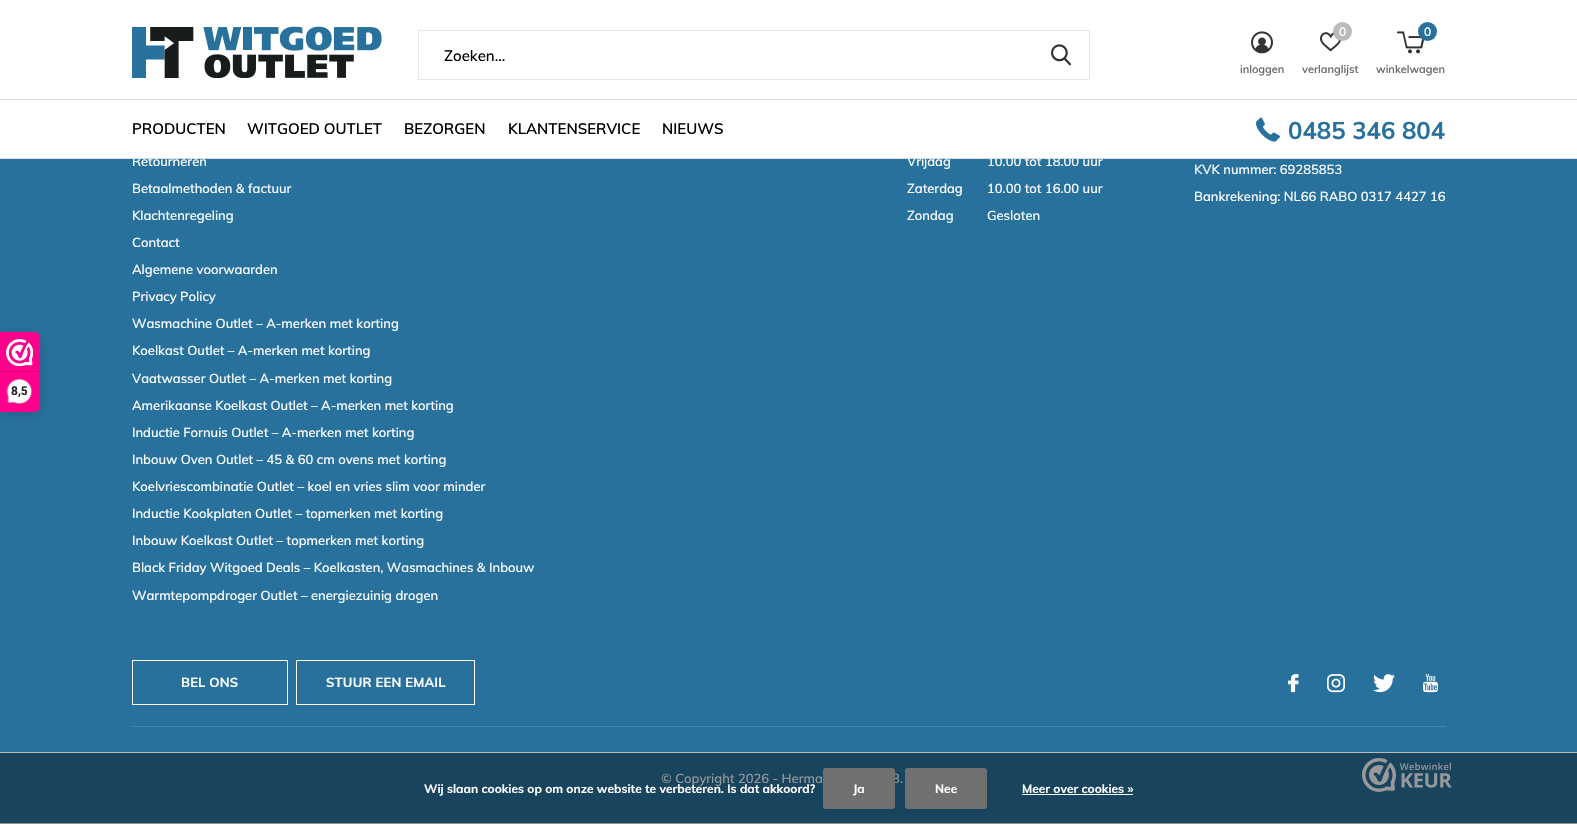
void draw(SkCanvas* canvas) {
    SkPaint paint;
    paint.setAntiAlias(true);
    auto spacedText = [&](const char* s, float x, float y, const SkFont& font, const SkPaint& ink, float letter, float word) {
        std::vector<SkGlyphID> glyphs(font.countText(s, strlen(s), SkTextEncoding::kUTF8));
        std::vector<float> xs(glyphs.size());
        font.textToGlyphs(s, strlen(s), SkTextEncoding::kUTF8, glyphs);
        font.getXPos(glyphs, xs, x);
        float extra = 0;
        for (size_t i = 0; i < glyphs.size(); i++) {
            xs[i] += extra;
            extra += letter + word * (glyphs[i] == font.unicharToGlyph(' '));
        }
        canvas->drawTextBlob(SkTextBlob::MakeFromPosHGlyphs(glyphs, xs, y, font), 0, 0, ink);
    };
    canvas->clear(0xFF939393);
    paint.setColor(0xFF28719D);
    canvas->drawRect(SkRect::MakeXYWH(0, 159, 1577, 593), paint);
    paint.setColor(0x26000000);
    paint.setMaskFilter(SkMaskFilter::MakeBlur(kNormal_SkBlurStyle, 5));
    canvas->drawRoundRect(SkRect::MakeXYWH(0, 334, 40, 80), 6, 6, paint);
    paint.setMaskFilter(nullptr);
    paint.setColor(0xFFFE008C);
    canvas->drawPath(SkPathBuilder().moveTo(0, 332).lineTo(34, 332).cubicTo(37.5f, 332, 40, 334.5f, 40, 338).lineTo(40, 406).cubicTo(40, 409.5f, 37.5f, 412, 34, 412).lineTo(0, 412).close().detach(), paint);
    canvas->drawImageRect(SkImages::DeferredFromEncodedData(SkData::MakeFromFileName("img1.png")), SkRect::MakeXYWH(6, 339, 27, 27), SkSamplingOptions());
    paint.setColor(0xFFD80077);
    canvas->drawRect(SkRect::MakeXYWH(0, 371, 39, 1), paint);
    canvas->drawImageRect(SkImages::DeferredFromEncodedData(SkData::MakeFromFileName("img2.png")), SkRect::MakeXYWH(6, 378, 26, 26), SkSamplingOptions());
    SkFont font1(fontMgr->matchFamilyStyle("Roboto", SkFontStyle::Bold()), 12);
    font1.setSubpixel(true);
    paint.setColor(0xFF272626);
    canvas->drawString("8,5", 11, 395, font1, paint);
    paint.setColor(0xFFFFFFFF);
    canvas->drawRect(SkRect::MakeXYWH(0, 0, 1577, 99), paint);
    canvas->drawImageRect(SkImages::DeferredFromEncodedData(SkData::MakeFromFileName("img3.png")), SkRect::MakeXYWH(132, 26, 250, 52), SkSamplingOptions());
    canvas->drawImageRect(SkImages::DeferredFromEncodedData(SkData::MakeFromFileName("img4.png")), SkRect::MakeXYWH(1251, 31, 22, 23), SkSamplingOptions());
    SkFont font2(fontMgr->matchFamilyStyle("Muli", SkFontStyle(600, SkFontStyle::kNormal_Width, SkFontStyle::kUpright_Slant)), 11);
    font2.setSubpixel(true);
    paint.setColor(0xFF646464);
    canvas->drawString("inloggen", 1240, 73, font2, paint);
    canvas->drawImageRect(SkImages::DeferredFromEncodedData(SkData::MakeFromFileName("img5.png")), SkRect::MakeXYWH(1320, 32, 21, 20), SkSamplingOptions());
    paint.setColor(0xFFBBBBBB);
    canvas->drawCircle(1342.5f, 31.5f, 9.5f, paint);
    SkFont font3(fontMgr->matchFamilyStyle("Muli", SkFontStyle(600, SkFontStyle::kNormal_Width, SkFontStyle::kUpright_Slant)), 12);
    font3.setSubpixel(true);
    paint.setColor(0xFFFFFFFF);
    canvas->drawString("0", 1339, 36, font3, paint);
    paint.setColor(0xFF646464);
    canvas->drawString("verlanglijst", 1302, 73, font2, paint);
    canvas->drawImageRect(SkImages::DeferredFromEncodedData(SkData::MakeFromFileName("img6.png")), SkRect::MakeXYWH(1397, 31, 27, 23), SkSamplingOptions());
    paint.setColor(0xFF28719D);
    canvas->drawCircle(1427.5f, 31.5f, 9.5f, paint);
    paint.setColor(0xFFFFFFFF);
    canvas->drawString("0", 1424, 36, font3, paint);
    paint.setColor(0xFF646464);
    canvas->drawString("winkelwagen", 1376, 73, font2, paint);
    paint.setColor(0xFFFFFFFF);
    canvas->drawRect(SkRect::MakeXYWH(0, 100, 1577, 58), paint);
    paint.setColor(0xFFDFDFDF);
    canvas->drawRect(SkRect::MakeXYWH(0, 99, 1577, 1), paint);
    SkFont font4(fontMgr->matchFamilyStyle("Muli", SkFontStyle(500, SkFontStyle::kNormal_Width, SkFontStyle::kUpright_Slant)), 13);
    font4.setSubpixel(true);
    paint.setColor(0xFFFFFFFF);
    canvas->drawString("Retourneren", 132, 166, font4, paint);
    canvas->drawString("Vrijdag", 907, 166, font4, paint);
    canvas->drawString("10.00 tot 18.00 uur", 987, 166, font4, paint);
    paint.setColor(0xFFDFDFDF);
    canvas->drawRect(SkRect::MakeXYWH(0, 158, 1577, 1), paint);
    SkFont font5(fontMgr->matchFamilyStyle("Muli", SkFontStyle(600, SkFontStyle::kNormal_Width, SkFontStyle::kUpright_Slant)), 15);
    font5.setSubpixel(true);
    paint.setColor(0xFF000000);
    canvas->drawString("PRODUCTEN", 132, 134, font5, paint);
    canvas->drawString("WITGOED OUTLET", 247, 134, font5, paint);
    canvas->drawString("BEZORGEN", 404, 134, font5, paint);
    canvas->drawString("KLANTENSERVICE", 508, 134, font5, paint);
    canvas->drawString("NIEUWS", 662, 134, font5, paint);
    canvas->drawImageRect(SkImages::DeferredFromEncodedData(SkData::MakeFromFileName("img7.png")), SkRect::MakeXYWH(1256, 117, 24, 25), SkSamplingOptions());
    SkFont font6(fontMgr->matchFamilyStyle("Muli", SkFontStyle::Bold()), 24);
    font6.setSubpixel(true);
    paint.setColor(0xFF28719D);
    canvas->drawString("0485 346 804", 1288, 139, font6, paint);
    paint.setStyle(SkPaint::kStroke_Style);
    paint.setStrokeWidth(1);
    paint.setColor(0xFFE5E5E5);
    canvas->drawRect(SkRect::MakeXYWH(418.5f, 30.5f, 671, 49), paint);
    SkFont font7(fontMgr->matchFamilyStyle("Muli", SkFontStyle(500, SkFontStyle::kNormal_Width, SkFontStyle::kUpright_Slant)), 15);
    font7.setSubpixel(true);
    paint.setStyle(SkPaint::kFill_Style);
    paint.setColor(0xFF000000);
    canvas->drawString("Zoeken...", 444, 61, font7, paint);
    canvas->drawImageRect(SkImages::DeferredFromEncodedData(SkData::MakeFromFileName("img8.png")), SkRect::MakeXYWH(1051, 44, 20, 22), SkSamplingOptions());
    paint.setColor(0xFFFFFFFF);
    canvas->drawString("Betaalmethoden & factuur", 132, 193, font4, paint);
    canvas->drawString("Klachtenregeling", 132, 220, font4, paint);
    canvas->drawString("Contact", 132, 247, font4, paint);
    canvas->drawString("Algemene voorwaarden", 132, 274, font4, paint);
    canvas->drawString("Privacy Policy", 132, 301, font4, paint);
    canvas->drawString("Wasmachine Outlet – A-merken met korting", 132, 328, font4, paint);
    canvas->drawString("Koelkast Outlet – A-merken met korting", 132, 355, font4, paint);
    canvas->drawString("Vaatwasser Outlet – A-merken met korting", 132, 383, font4, paint);
    canvas->drawString("Amerikaanse Koelkast Outlet – A-merken met korting", 132, 410, font4, paint);
    canvas->drawString("Inductie Fornuis Outlet – A-merken met korting", 132, 437, font4, paint);
    canvas->drawString("Inbouw Oven Outlet – 45 & 60 cm ovens met korting", 132, 464, font4, paint);
    canvas->drawString("Koelvriescombinatie Outlet – koel en vries slim voor minder", 132, 491, font4, paint);
    canvas->drawString("Inductie Kookplaten Outlet – topmerken met korting", 132, 518, font4, paint);
    canvas->drawString("Inbouw Koelkast Outlet – topmerken met korting", 132, 545, font4, paint);
    canvas->drawString("Black Friday Witgoed Deals – Koelkasten, Wasmachines & Inbouw", 132, 572, font4, paint);
    canvas->drawString("Warmtepompdroger Outlet – energiezuinig drogen", 132, 600, font4, paint);
    canvas->drawString("Zaterdag", 907, 193, font4, paint);
    canvas->drawString("10.00 tot 16.00 uur", 987, 193, font4, paint);
    canvas->drawString("Zondag", 907, 220, font4, paint);
    canvas->drawString("Gesloten", 987, 220, font4, paint);
    canvas->drawString("KVK nummer: 69285853", 1194, 174, font4, paint);
    canvas->drawString("Bankrekening: NL66 RABO 0317 4427 16", 1194, 201, font4, paint);
    paint.setStyle(SkPaint::kStroke_Style);
    canvas->drawRect(SkRect::MakeXYWH(132.5f, 660.5f, 155, 44), paint);
    SkFont font8(fontMgr->matchFamilyStyle("Muli", SkFontStyle::Bold()), 13);
    font8.setSubpixel(true);
    paint.setStyle(SkPaint::kFill_Style);
    spacedText("BEL ONS", 181, 687, font8, paint, 0.2f, 0);
    paint.setStyle(SkPaint::kStroke_Style);
    canvas->drawRect(SkRect::MakeXYWH(296.5f, 660.5f, 178, 44), paint);
    paint.setStyle(SkPaint::kFill_Style);
    spacedText("STUUR EEN EMAIL", 326, 687, font8, paint, 0.2f, 0);
    canvas->drawImageRect(SkImages::DeferredFromEncodedData(SkData::MakeFromFileName("img9.png")), SkRect::MakeXYWH(1288, 674, 11, 19), SkSamplingOptions());
    canvas->drawImageRect(SkImages::DeferredFromEncodedData(SkData::MakeFromFileName("img10.png")), SkRect::MakeXYWH(1327, 674, 18, 19), SkSamplingOptions());
    canvas->drawImageRect(SkImages::DeferredFromEncodedData(SkData::MakeFromFileName("img11.png")), SkRect::MakeXYWH(1373, 674, 22, 19), SkSamplingOptions());
    canvas->drawImageRect(SkImages::DeferredFromEncodedData(SkData::MakeFromFileName("img12.png")), SkRect::MakeXYWH(1423, 674, 15, 19), SkSamplingOptions());
    paint.setColor(0xFF4387B1);
    canvas->drawRect(SkRect::MakeXYWH(132, 726, 1314, 1), paint);
    paint.setColor(0xFF18445E);
    canvas->drawRect(SkRect::MakeXYWH(0, 753, 1577, 70), paint);
    paint.setColor(0xFF999999);
    canvas->drawString("© Copyright 2026 - Herma", 661, 783, font4, paint);
    canvas->drawString("B.", 891, 783, font4, paint);
    canvas->drawImageRect(SkImages::DeferredFromEncodedData(SkData::MakeFromFileName("img13.png")), SkRect::MakeXYWH(1362, 758, 90, 34), SkSamplingOptions());
    paint.setColor(0xFFBBBBBB);
    canvas->drawRect(SkRect::MakeXYWH(0, 752, 1577, 1), paint);
    SkFont font9(fontMgr->matchFamilyStyle("Muli", SkFontStyle::Bold()), 12);
    font9.setSubpixel(true);
    paint.setColor(0xFFFFFFFF);
    canvas->drawString("Wij slaan cookies op om onze website te verbeteren. Is dat akkoord?", 424, 793, font9, paint);
    paint.setColor(0xFF707070);
    canvas->drawRoundRect(SkRect::MakeXYWH(823, 768, 72, 41), 3, 3, paint);
    paint.setColor(0xFFFFFFFF);
    canvas->drawString("Ja", 853, 793, font9, paint);
    paint.setColor(0xFF707070);
    canvas->drawRoundRect(SkRect::MakeXYWH(905, 768, 82, 41), 3, 3, paint);
    paint.setColor(0xFFFFFFFF);
    canvas->drawString("Nee", 935, 793, font9, paint);
    canvas->drawString("Meer over cookies »", 1022, 793, font9, paint);
    canvas->drawRect(SkRect::MakeXYWH(1022, 794, 111, 1), paint);
}
